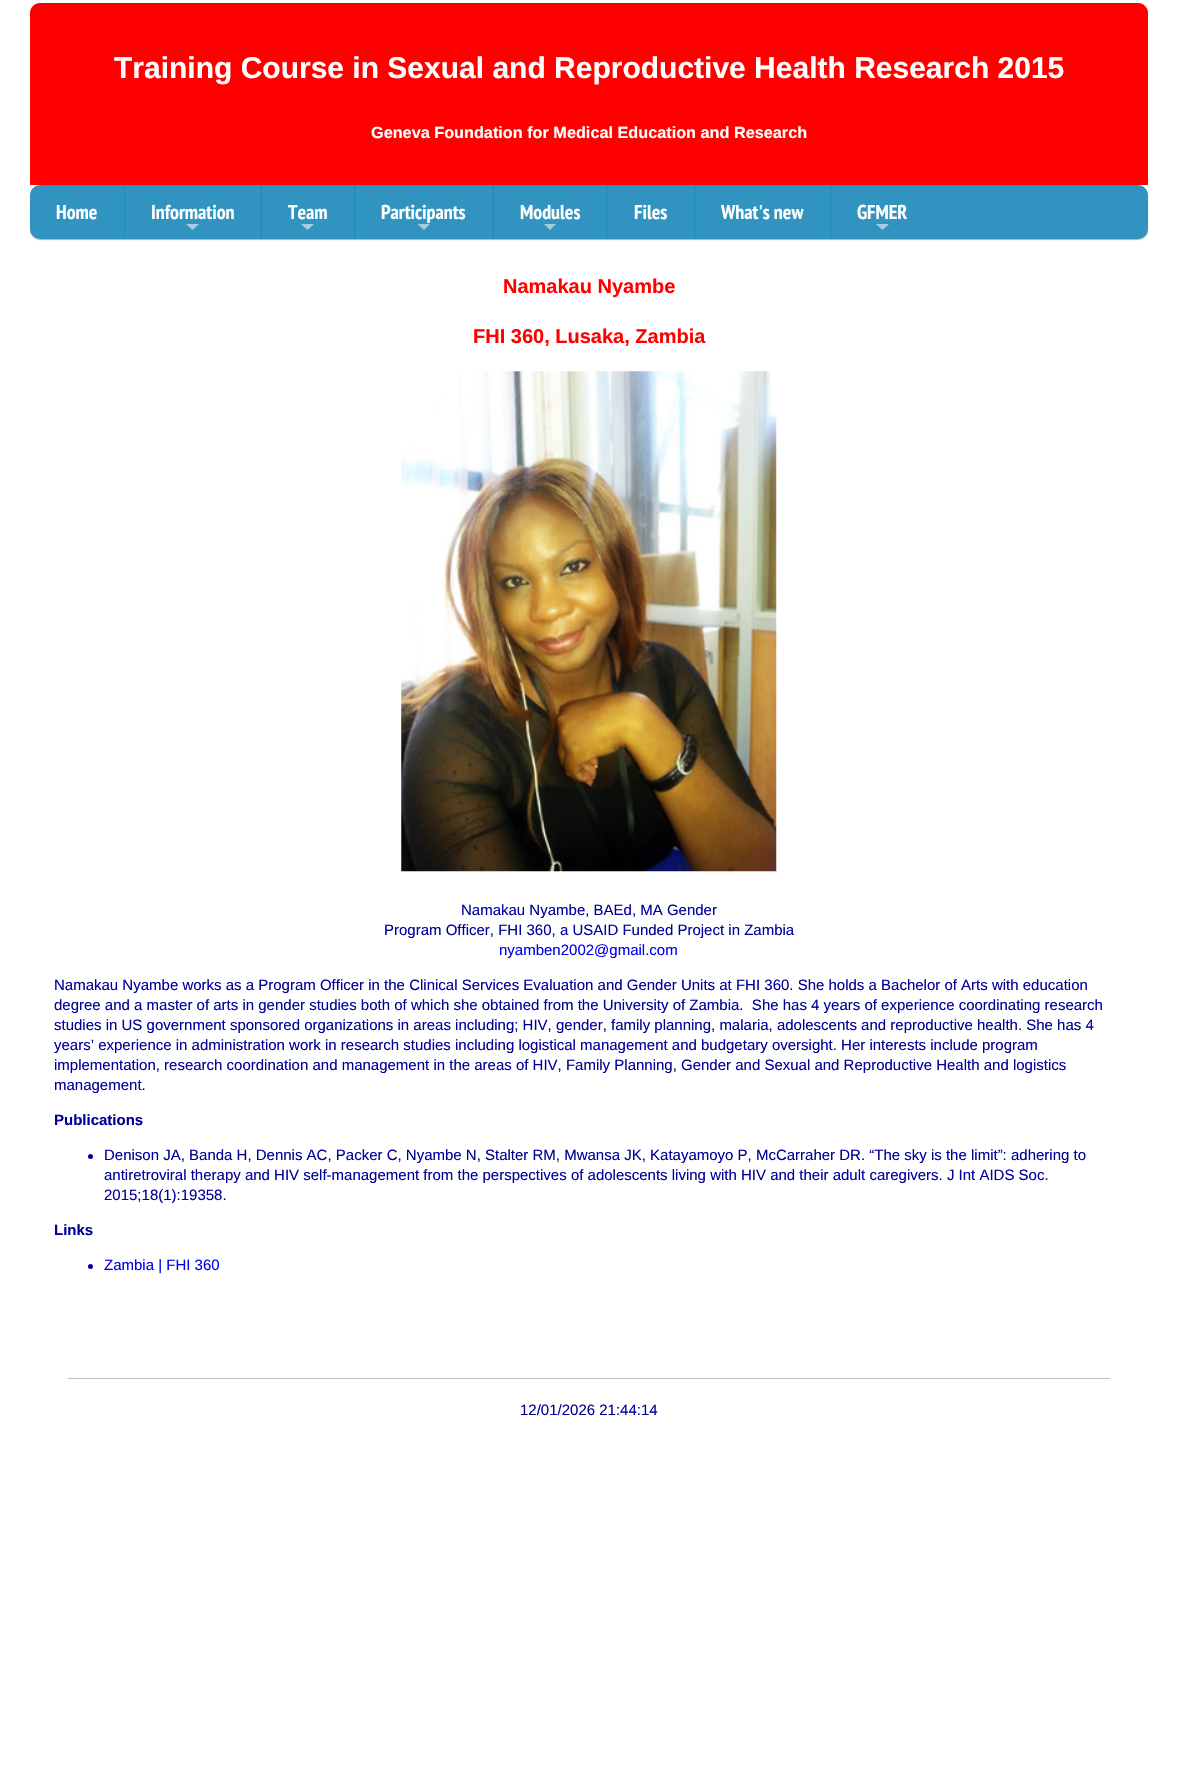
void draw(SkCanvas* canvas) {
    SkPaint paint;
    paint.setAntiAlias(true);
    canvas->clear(0xFFFFFFFF);
    paint.setColor(0xFFFF0000);
    canvas->drawPath(SkPathBuilder().moveTo(40, 3).lineTo(1138, 3).cubicTo(1143.5f, 3, 1148, 7.5f, 1148, 13).lineTo(1148, 185).lineTo(30, 185).lineTo(30, 13).cubicTo(30, 7.5f, 34.5f, 3, 40, 3).close().detach(), paint);
    SkFont font1(fontMgr->matchFamilyStyle("Liberation Sans", SkFontStyle::Bold()), 30);
    font1.setSubpixel(true);
    paint.setColor(0xFFFFFFFF);
    canvas->drawString("Training Course in Sexual and Reproductive Health Research 2015", 114, 78, font1, paint);
    SkFont font2(fontMgr->matchFamilyStyle("Liberation Sans", SkFontStyle::Bold()), 16.25f);
    font2.setSubpixel(true);
    canvas->drawString("Geneva Foundation for Medical Education and Research", 371, 138, font2, paint);
    paint.setColor(0x4D000000);
    paint.setMaskFilter(SkMaskFilter::MakeBlur(kNormal_SkBlurStyle, 0.5f));
    canvas->drawRoundRect(SkRect::MakeXYWH(30, 186, 1118, 54), 10, 10, paint);
    paint.setMaskFilter(nullptr);
    paint.setColor(0xFF3193C0);
    canvas->drawRoundRect(SkRect::MakeXYWH(30, 185, 1118, 54), 10, 10, paint);
    SkFont font3(fontMgr->matchFamilyStyle("PT Sans Narrow", SkFontStyle::Bold()), 20);
    font3.setSubpixel(true);
    paint.setColor(0xFFFFFFFF);
    canvas->drawString("Home", 56, 219, font3, paint);
    paint.setColor(0xFF1A8BB9);
    canvas->drawRect(SkRect::MakeXYWH(124, 185, 1, 54), paint);
    paint.setColor(0xFFFFFFFF);
    canvas->drawString("Information", 151, 219, font3, paint);
    paint.setColor(0xFFA4CDE1);
    canvas->drawPath(SkPathBuilder().moveTo(186, 224).lineTo(199, 224).lineTo(192.5f, 230).close().detach(), paint);
    paint.setColor(0xFF1A8BB9);
    canvas->drawRect(SkRect::MakeXYWH(261, 185, 1, 54), paint);
    paint.setColor(0xFFFFFFFF);
    canvas->drawString("Team", 288, 219, font3, paint);
    paint.setColor(0xFFA4CDE1);
    canvas->drawPath(SkPathBuilder().moveTo(301, 224).lineTo(314, 224).lineTo(307.5f, 230).close().detach(), paint);
    paint.setColor(0xFF1A8BB9);
    canvas->drawRect(SkRect::MakeXYWH(354, 185, 1, 54), paint);
    paint.setColor(0xFFFFFFFF);
    canvas->drawString("Participants", 381, 219, font3, paint);
    paint.setColor(0xFFA4CDE1);
    canvas->drawPath(SkPathBuilder().moveTo(417.5f, 224).lineTo(430, 224).lineTo(424, 230).close().detach(), paint);
    paint.setColor(0xFF1A8BB9);
    canvas->drawRect(SkRect::MakeXYWH(493, 185, 1, 54), paint);
    paint.setColor(0xFFFFFFFF);
    canvas->drawString("Modules", 520, 219, font3, paint);
    paint.setColor(0xFFA4CDE1);
    canvas->drawPath(SkPathBuilder().moveTo(544, 224).lineTo(556, 224).lineTo(550, 230).close().detach(), paint);
    paint.setColor(0xFF1A8BB9);
    canvas->drawRect(SkRect::MakeXYWH(606, 185, 1, 54), paint);
    paint.setColor(0xFFFFFFFF);
    canvas->drawString("Files", 634, 219, font3, paint);
    paint.setColor(0xFF1A8BB9);
    canvas->drawRect(SkRect::MakeXYWH(694, 185, 1, 54), paint);
    paint.setColor(0xFFFFFFFF);
    canvas->drawString("What's new", 721, 219, font3, paint);
    paint.setColor(0xFF1A8BB9);
    canvas->drawRect(SkRect::MakeXYWH(830, 185, 1, 54), paint);
    paint.setColor(0xFFFFFFFF);
    canvas->drawString("GFMER", 857, 219, font3, paint);
    paint.setColor(0xFFA4CDE1);
    canvas->drawPath(SkPathBuilder().moveTo(876, 224).lineTo(889, 224).lineTo(882.5f, 230).close().detach(), paint);
    SkFont font4(fontMgr->matchFamilyStyle("Liberation Sans", SkFontStyle::Bold()), 20);
    font4.setSubpixel(true);
    paint.setColor(0xFFFF0000);
    canvas->drawString("Namakau Nyambe", 503, 293, font4, paint);
    canvas->drawString("FHI 360, Lusaka, Zambia", 473, 343, font4, paint);
    canvas->drawImageRect(SkImages::DeferredFromEncodedData(SkData::MakeFromFileName("img1.png")), SkRect::MakeXYWH(401, 371, 376, 501), SkSamplingOptions());
    SkFont font5(fontMgr->matchFamilyStyle("Liberation Sans", SkFontStyle::Normal()), 15);
    font5.setSubpixel(true);
    paint.setColor(0xFF000099);
    canvas->drawString("Namakau Nyambe, BAEd, MA Gender", 461, 915, font5, paint);
    canvas->drawString("Program Officer, FHI 360, a USAID Funded Project in Zambia", 384, 935, font5, paint);
    paint.setColor(0xFF0000EE);
    canvas->drawString("nyamben2002@gmail.com", 499, 955, font5, paint);
    paint.setColor(0xFF000099);
    canvas->drawString("Namakau Nyambe works as a Program Officer in the Clinical Services Evaluation and Gender Units at FHI 360. She holds a Bachelor of Arts with education", 54, 990, font5, paint);
    canvas->drawString("degree and a master of arts in gender studies both of which she obtained from the University of Zambia.  She has 4 years of experience coordinating research", 54, 1010, font5, paint);
    canvas->drawString("studies in US government sponsored organizations in areas including; HIV, gender, family planning, malaria, adolescents and reproductive health. She has 4", 54, 1030, font5, paint);
    canvas->drawString("years’ experience in administration work in research studies including logistical management and budgetary oversight. Her interests include program", 54, 1050, font5, paint);
    canvas->drawString("implementation, research coordination and management in the areas of HIV, Family Planning, Gender and Sexual and Reproductive Health and logistics", 54, 1070, font5, paint);
    canvas->drawString("management.", 54, 1090, font5, paint);
    SkFont font6(fontMgr->matchFamilyStyle("Liberation Sans", SkFontStyle::Bold()), 15);
    font6.setSubpixel(true);
    canvas->drawString("Publications", 54, 1125, font6, paint);
    canvas->drawCircle(90.5f, 1156.5f, 2.5f, paint);
    canvas->drawString("Denison JA, Banda H, Dennis AC, Packer C, Nyambe N, Stalter RM, Mwansa JK, Katayamoyo P, McCarraher DR. “The sky is the limit”: adhering to", 104, 1160, font5, paint);
    canvas->drawString("antiretroviral therapy and HIV self-management from the perspectives of adolescents living with HIV and their adult caregivers. J Int AIDS Soc.", 104, 1180, font5, paint);
    canvas->drawString("2015;18(1):19358.", 104, 1200, font5, paint);
    canvas->drawString("Links", 54, 1235, font6, paint);
    canvas->drawCircle(90.5f, 1266.5f, 2.5f, paint);
    paint.setColor(0xFF0000EE);
    canvas->drawString("Zambia | FHI 360", 104, 1270, font5, paint);
    paint.setColor(0xFFC0C0C0);
    canvas->drawRect(SkRect::MakeXYWH(68, 1378, 1042, 1), paint);
    paint.setColor(0xFF000099);
    canvas->drawString("12/01/2026 21:44:14", 520, 1415, font5, paint);
}
